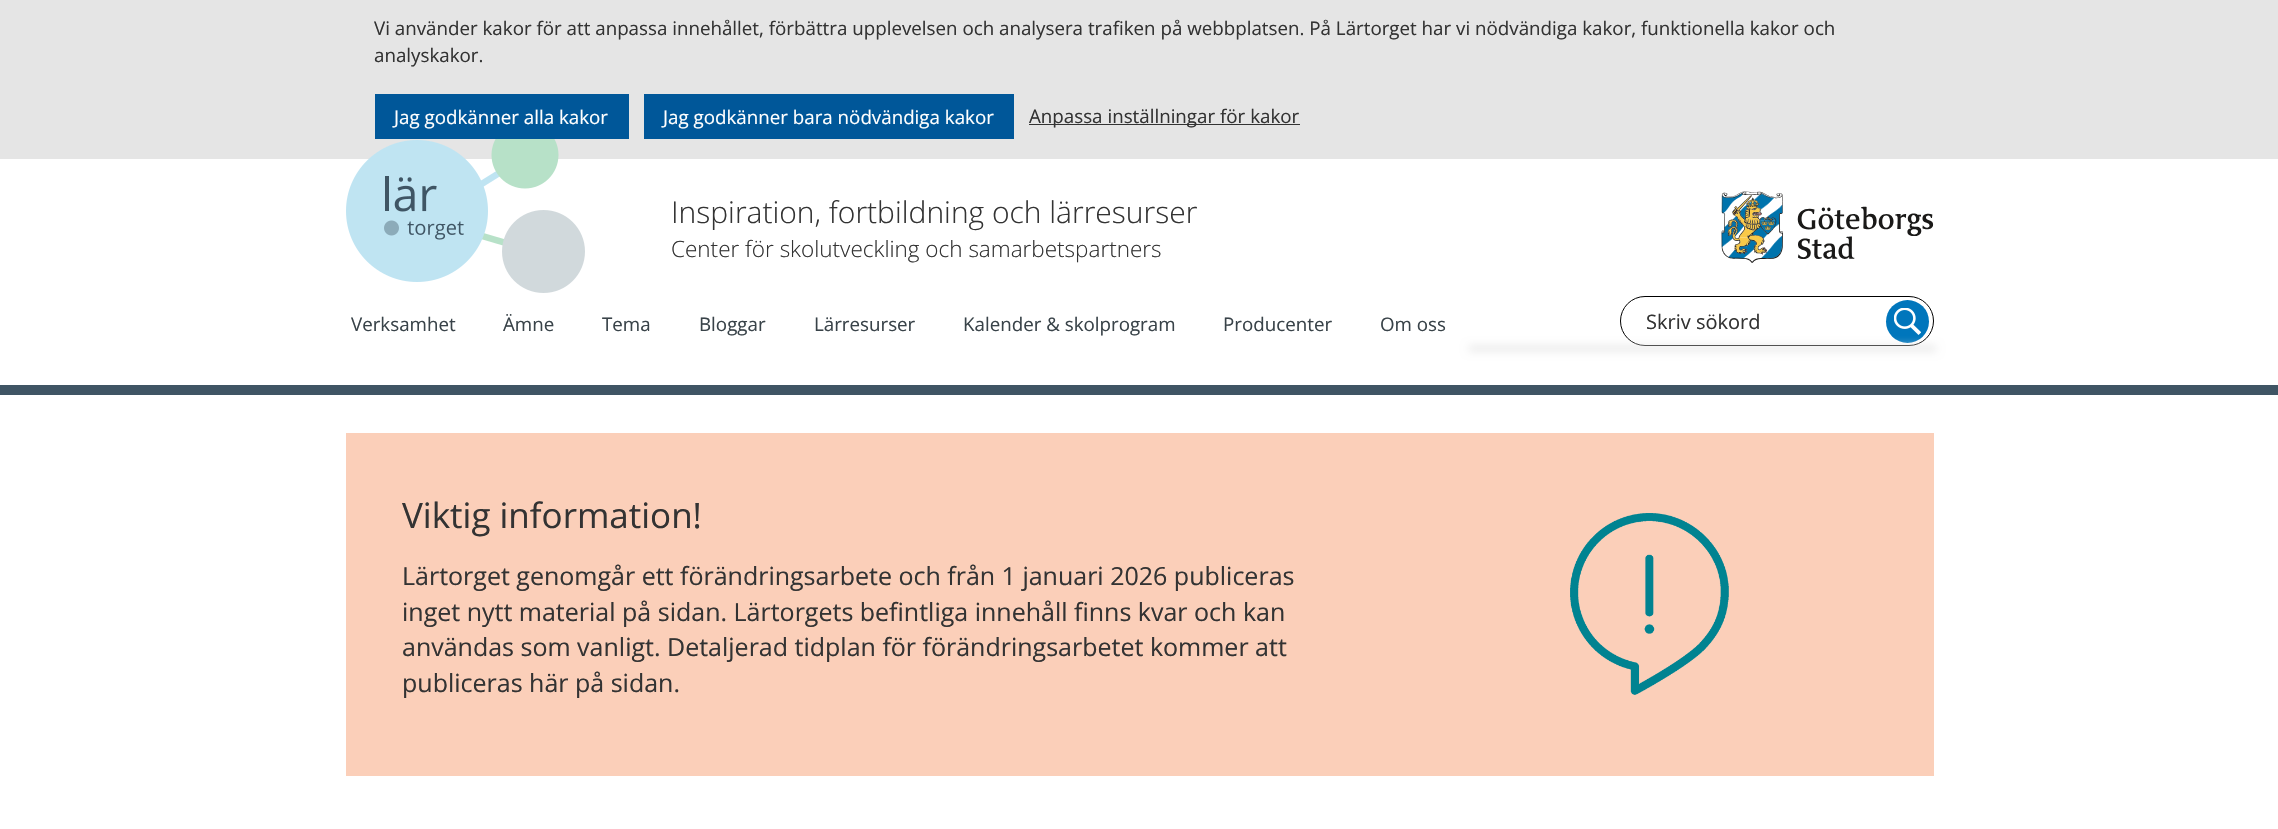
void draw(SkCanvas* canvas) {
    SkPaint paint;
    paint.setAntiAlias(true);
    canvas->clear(0xFFFFFFFF);
    paint.setColor(0xFFE5E5E5);
    canvas->drawRect(SkRect::MakeXYWH(0, 0, 2278, 159), paint);
    SkFont font1(fontMgr->matchFamilyStyle("Open Sans", SkFontStyle::Normal()), 18.75f);
    font1.setSubpixel(true);
    paint.setColor(0xFF333333);
    canvas->drawString("Vi använder kakor för att anpassa innehållet, förbättra upplevelsen och analysera trafiken på webbplatsen. På Lärtorget har vi nödvändiga kakor, funktionella kakor och", 374, 35, font1, paint);
    canvas->drawString("analyskakor.", 374, 62, font1, paint);
    paint.setColor(0xFF005799);
    canvas->drawRect(SkRect::MakeXYWH(375, 94, 254, 45), paint);
    paint.setColor(0xFFFFFFFF);
    canvas->drawString("Jag godkänner alla kakor", 394, 124, font1, paint);
    paint.setColor(0xFF005799);
    canvas->drawRect(SkRect::MakeXYWH(644, 94, 370, 45), paint);
    paint.setColor(0xFFFFFFFF);
    canvas->drawString("Jag godkänner bara nödvändiga kakor", 663, 124, font1, paint);
    paint.setColor(0xFF333333);
    canvas->drawRect(SkRect::MakeXYWH(1029, 124, 271, 1), paint);
    canvas->drawString("Anpassa inställningar för kakor", 1029, 123, font1, paint);
    canvas->drawImageRect(SkImages::DeferredFromEncodedData(SkData::MakeFromFileName("img1.png")), SkRect::MakeXYWH(346, 139, 239, 154), SkSamplingOptions());
    SkFont font2(fontMgr->matchFamilyStyle("Open Sans", SkFontStyle(300, SkFontStyle::kNormal_Width, SkFontStyle::kUpright_Slant)), 30);
    font2.setSubpixel(true);
    canvas->drawString("Inspiration, fortbildning och lärresurser", 671, 223, font2, paint);
    SkFont font3(fontMgr->matchFamilyStyle("Open Sans", SkFontStyle(300, SkFontStyle::kNormal_Width, SkFontStyle::kUpright_Slant)), 22.5f);
    font3.setSubpixel(true);
    canvas->drawString("Center för skolutveckling och samarbetspartners", 671, 257, font3, paint);
    canvas->drawImageRect(SkImages::DeferredFromEncodedData(SkData::MakeFromFileName("img2.png")), SkRect::MakeXYWH(1721, 191, 213, 72), SkSamplingOptions());
    paint.setColor(0xFF394349);
    canvas->drawString("Verksamhet", 351, 331, font1, paint);
    canvas->drawString("Ämne", 503, 331, font1, paint);
    canvas->drawString("Tema", 602, 331, font1, paint);
    canvas->drawString("Bloggar", 699, 331, font1, paint);
    canvas->drawString("Lärresurser", 814, 331, font1, paint);
    canvas->drawString("Kalender & skolprogram", 963, 331, font1, paint);
    canvas->drawString("Producenter", 1223, 331, font1, paint);
    canvas->drawString("Om oss", 1380, 331, font1, paint);
    paint.setStyle(SkPaint::kStroke_Style);
    paint.setStrokeWidth(1);
    paint.setColor(0xFF000000);
    canvas->drawRoundRect(SkRect::MakeXYWH(1620.5f, 296.5f, 313, 49), 24.5f, 24.5f, paint);
    SkFont font4(fontMgr->matchFamilyStyle("Open Sans", SkFontStyle::Normal()), 20);
    font4.setSubpixel(true);
    paint.setStyle(SkPaint::kFill_Style);
    paint.setColor(0xFF333333);
    canvas->drawString("Skriv sökord", 1646, 329, font4, paint);
    paint.setColor(0xFF0076BC);
    canvas->drawCircle(1907.5f, 321.5f, 21.5f, paint);
    canvas->drawImageRect(SkImages::DeferredFromEncodedData(SkData::MakeFromFileName("img3.png")), SkRect::MakeXYWH(1894, 308, 27, 27), SkSamplingOptions());
    paint.setColor(0xFFE5E5E5);
    paint.setMaskFilter(SkMaskFilter::MakeBlur(kNormal_SkBlurStyle, 4.5f));
    canvas->drawRect(SkRect::MakeXYWH(1469, 346, 467, 5), paint);
    paint.setMaskFilter(nullptr);
    paint.setColor(0xFF3F5564);
    canvas->drawRect(SkRect::MakeXYWH(0, 385, 2278, 10), paint);
    paint.setColor(0xFFFBCFB9);
    canvas->drawRect(SkRect::MakeXYWH(346, 433, 1588, 343), paint);
    SkFont font5(fontMgr->matchFamilyStyle("Open Sans", SkFontStyle::Normal()), 35);
    font5.setSubpixel(true);
    paint.setColor(0xFF333333);
    canvas->drawString("Viktig information!", 402, 528, font5, paint);
    SkFont font6(fontMgr->matchFamilyStyle("Open Sans", SkFontStyle::Normal()), 25);
    font6.setSubpixel(true);
    canvas->drawString("Lärtorget genomgår ett förändringsarbete och från 1 januari 2026 publiceras", 402, 585, font6, paint);
    canvas->drawString("inget nytt material på sidan. Lärtorgets befintliga innehåll finns kvar och kan", 402, 621, font6, paint);
    canvas->drawString("användas som vanligt. Detaljerad tidplan för förändringsarbetet kommer att", 402, 656, font6, paint);
    canvas->drawString("publiceras här på sidan.", 402, 692, font6, paint);
    canvas->drawImageRect(SkImages::DeferredFromEncodedData(SkData::MakeFromFileName("img4.png")), SkRect::MakeXYWH(1570, 513, 159, 182), SkSamplingOptions());
}
